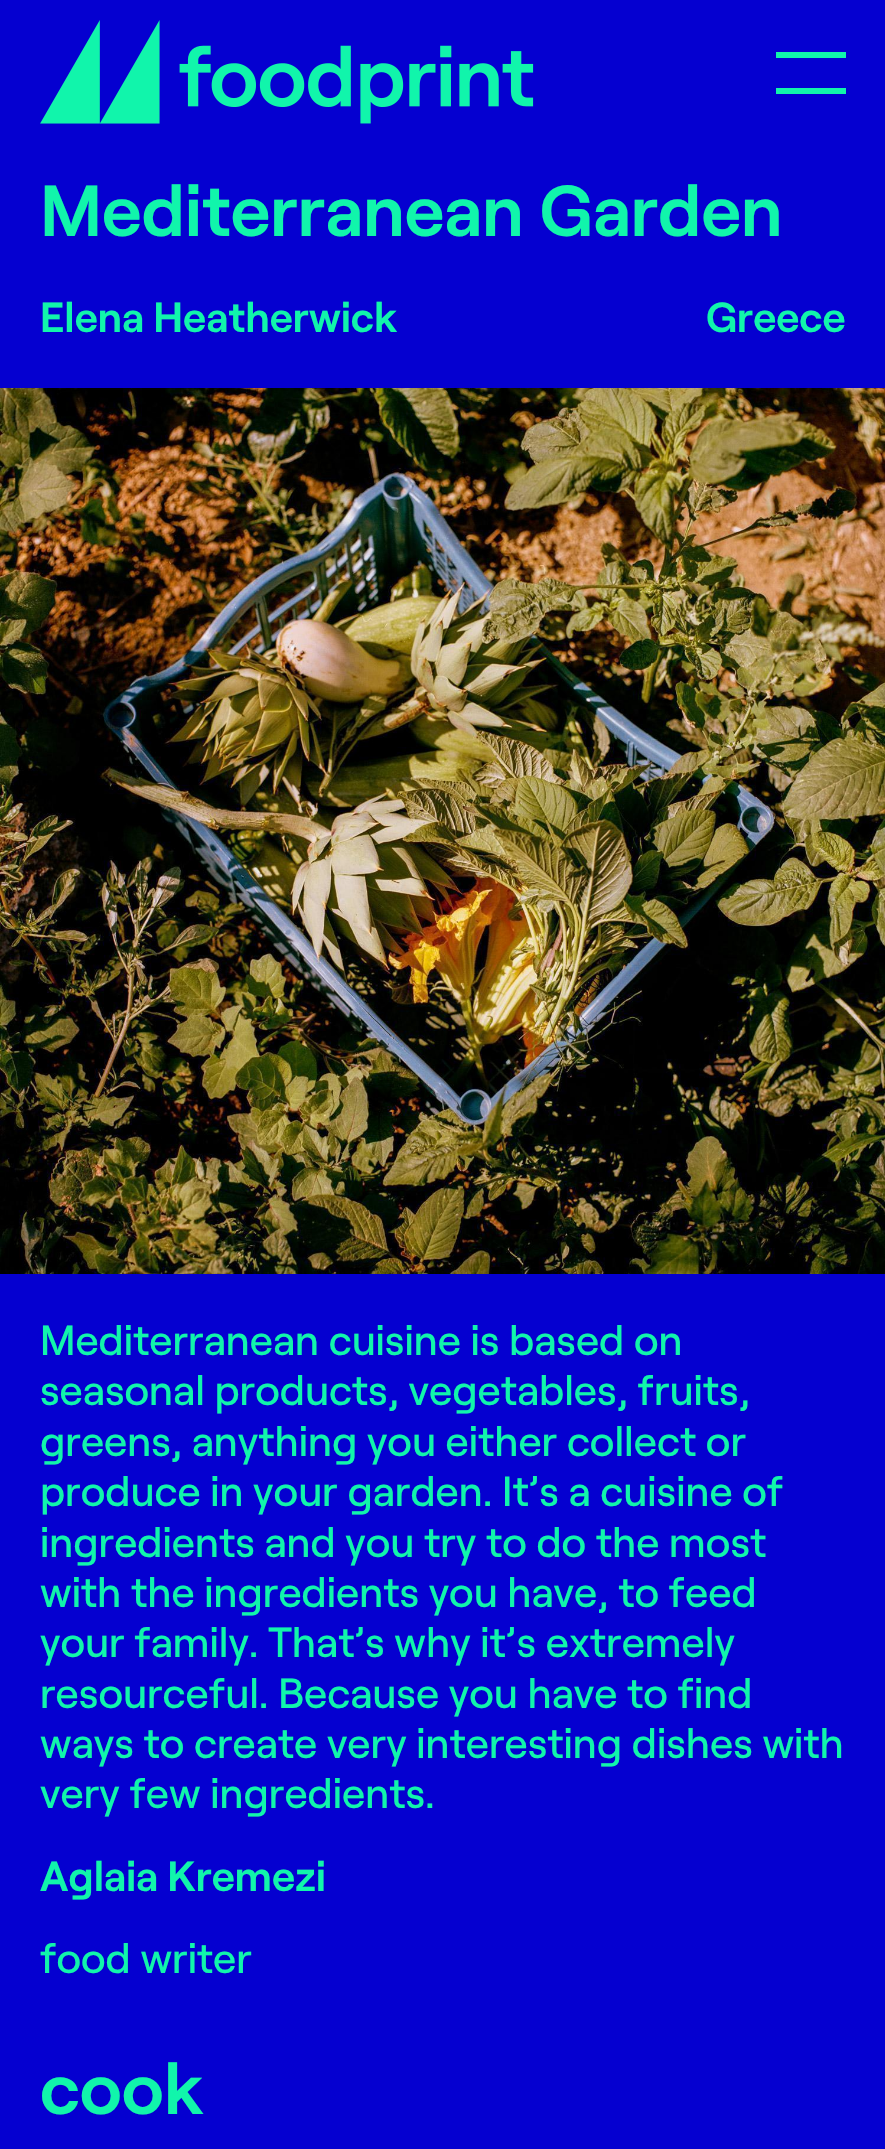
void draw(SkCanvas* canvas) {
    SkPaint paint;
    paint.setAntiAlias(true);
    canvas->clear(0xFF0500D0);
    canvas->drawImageRect(SkImages::DeferredFromEncodedData(SkData::MakeFromFileName("img1.png")), SkRect::MakeXYWH(40, 20, 494, 104), SkSamplingOptions());
    paint.setColor(0xFF11F5AB);
    canvas->drawRect(SkRect::MakeXYWH(776, 52, 70, 6), paint);
    canvas->drawRect(SkRect::MakeXYWH(776, 88, 70, 6), paint);
    SkFont font1(fontMgr->matchFamilyStyle("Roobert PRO", SkFontStyle(600, SkFontStyle::kNormal_Width, SkFontStyle::kUpright_Slant)), 72);
    font1.setSubpixel(true);
    canvas->drawString("Mediterranean Garden", 40, 236, font1, paint);
    SkFont font2(fontMgr->matchFamilyStyle("Roobert PRO", SkFontStyle(600, SkFontStyle::kNormal_Width, SkFontStyle::kUpright_Slant)), 42);
    font2.setSubpixel(true);
    canvas->drawString("Elena Heatherwick", 40, 332, font2, paint);
    canvas->drawString("Greece", 706, 332, font2, paint);
    canvas->drawImageRect(SkImages::DeferredFromEncodedData(SkData::MakeFromFileName("img2.png")), SkRect::MakeXYWH(0, 388, 885, 886), SkSamplingOptions());
    SkFont font3(fontMgr->matchFamilyStyle("Roobert PRO", SkFontStyle(500, SkFontStyle::kNormal_Width, SkFontStyle::kUpright_Slant)), 42);
    font3.setSubpixel(true);
    canvas->drawString("Mediterranean cuisine is based on", 40, 1355, font3, paint);
    canvas->drawString("seasonal products, vegetables, fruits,", 40, 1405, font3, paint);
    canvas->drawString("greens, anything you either collect or", 40, 1456, font3, paint);
    canvas->drawString("produce in your garden. It’s a cuisine of", 40, 1506, font3, paint);
    canvas->drawString("ingredients and you try to do the most", 40, 1557, font3, paint);
    canvas->drawString("with the ingredients you have, to feed", 40, 1607, font3, paint);
    canvas->drawString("your family. That’s why it’s extremely", 40, 1657, font3, paint);
    canvas->drawString("resourceful. Because you have to find", 40, 1708, font3, paint);
    canvas->drawString("ways to create very interesting dishes with", 40, 1758, font3, paint);
    canvas->drawString("very few ingredients.", 40, 1808, font3, paint);
    canvas->drawString("Aglaia Kremezi", 40, 1891, font2, paint);
    canvas->drawString("food writer", 40, 1973, font3, paint);
    canvas->drawString("cook", 40, 2114, font1, paint);
}
